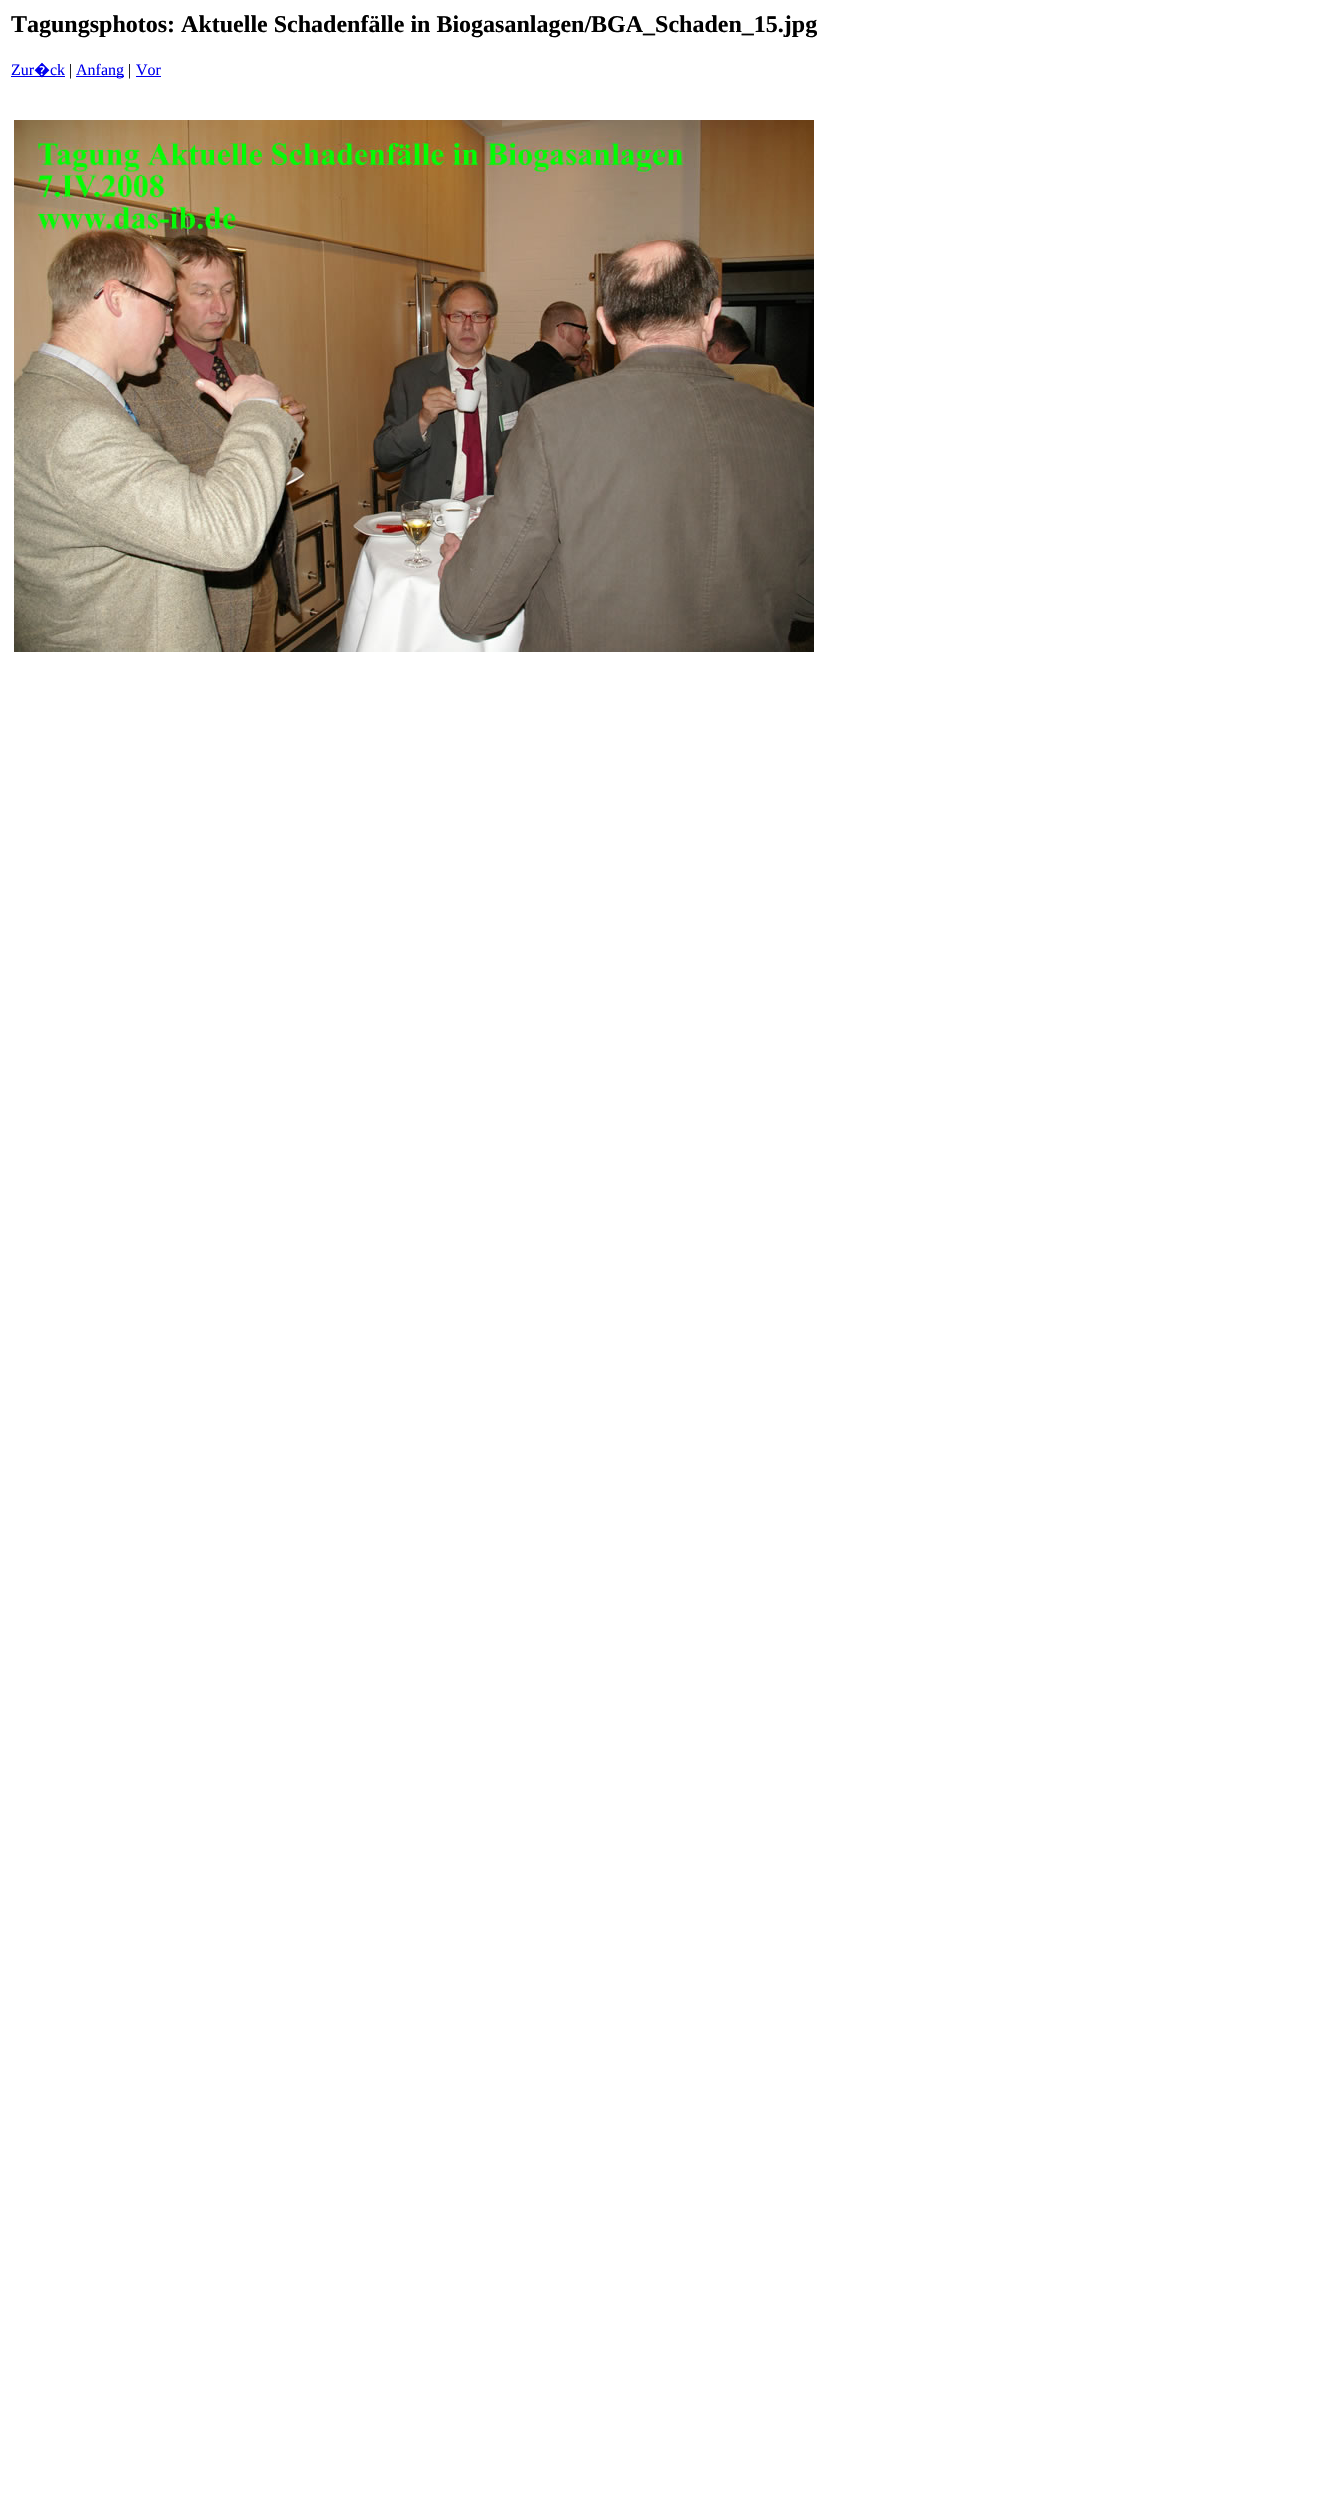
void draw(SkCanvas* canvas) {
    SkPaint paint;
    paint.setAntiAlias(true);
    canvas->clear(0xFFFFFFFF);
    SkFont font1(fontMgr->matchFamilyStyle("Liberation Serif", SkFontStyle::Bold()), 24);
    font1.setSubpixel(true);
    paint.setColor(0xFF000000);
    canvas->drawString("Tagungsphotos: Aktuelle Schadenfälle in Biogasanlagen/BGA_Schaden_15.jpg", 11, 32, font1, paint);
    SkFont font2(fontMgr->matchFamilyStyle("Liberation Serif", SkFontStyle::Normal()), 16);
    font2.setSubpixel(true);
    paint.setColor(0xFF0000EE);
    canvas->drawString("Zur", 11, 75, font2, paint);
    canvas->drawRect(SkRect::MakeXYWH(11, 76, 54, 1), paint);
    SkFont font3(fontMgr->matchFamilyStyle("Noto Sans", SkFontStyle::Normal()), 16);
    font3.setSubpixel(true);
    canvas->drawString("�", 34, 75, font3, paint);
    canvas->drawString("ck", 50, 75, font2, paint);
    paint.setColor(0xFF000000);
    canvas->drawString("|", 69, 75, font2, paint);
    paint.setColor(0xFF0000EE);
    canvas->drawRect(SkRect::MakeXYWH(76, 76, 48, 1), paint);
    canvas->drawString("Anfang", 76, 75, font2, paint);
    paint.setColor(0xFF000000);
    canvas->drawString("|", 128, 75, font2, paint);
    paint.setColor(0xFF0000EE);
    canvas->drawString("Vor", 136, 75, font2, paint);
    canvas->drawRect(SkRect::MakeXYWH(136, 76, 25, 1), paint);
    canvas->drawImageRect(SkImages::DeferredFromEncodedData(SkData::MakeFromFileName("img1.png")), SkRect::MakeXYWH(14, 120, 800, 532), SkSamplingOptions());
}
